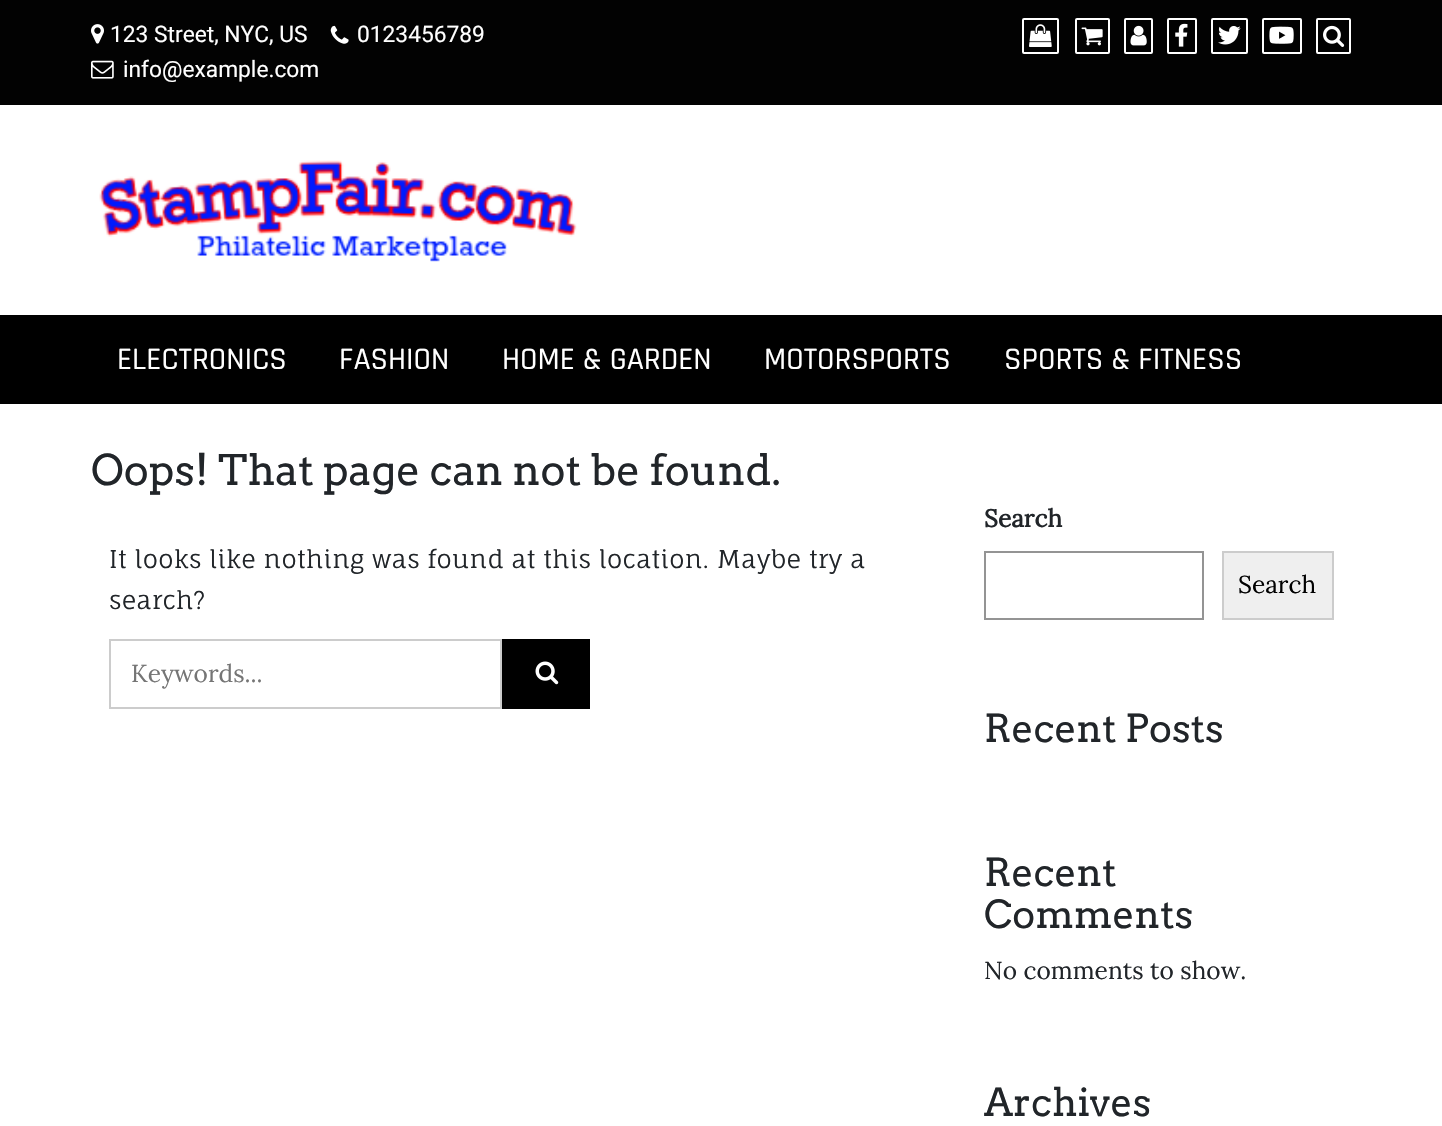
void draw(SkCanvas* canvas) {
    SkPaint paint;
    paint.setAntiAlias(true);
    auto spacedText = [&](const char* s, float x, float y, const SkFont& font, const SkPaint& ink, float letter, float word) {
        std::vector<SkGlyphID> glyphs(font.countText(s, strlen(s), SkTextEncoding::kUTF8));
        std::vector<float> xs(glyphs.size());
        font.textToGlyphs(s, strlen(s), SkTextEncoding::kUTF8, glyphs);
        font.getXPos(glyphs, xs, x);
        float extra = 0;
        for (size_t i = 0; i < glyphs.size(); i++) {
            xs[i] += extra;
            extra += letter + word * (glyphs[i] == font.unicharToGlyph(' '));
        }
        canvas->drawTextBlob(SkTextBlob::MakeFromPosHGlyphs(glyphs, xs, y, font), 0, 0, ink);
    };
    canvas->clear(0xFFFFFFFF);
    paint.setColor(0xFF020202);
    canvas->drawRect(SkRect::MakeXYWH(0, 0, 1442, 105), paint);
    canvas->drawImageRect(SkImages::DeferredFromEncodedData(SkData::MakeFromFileName("img1.png")), SkRect::MakeXYWH(91, 24, 13, 20), SkSamplingOptions());
    SkFont font1(fontMgr->matchFamilyStyle("Roboto", SkFontStyle::Normal()), 22.75f);
    font1.setSubpixel(true);
    paint.setColor(0xFFFFFFFF);
    canvas->drawString("123 Street, NYC, US", 110, 42, font1, paint);
    canvas->drawImageRect(SkImages::DeferredFromEncodedData(SkData::MakeFromFileName("img2.png")), SkRect::MakeXYWH(330, 25, 19, 19), SkSamplingOptions());
    canvas->drawString("0123456789", 357, 42, font1, paint);
    canvas->drawImageRect(SkImages::DeferredFromEncodedData(SkData::MakeFromFileName("img3.png")), SkRect::MakeXYWH(91, 60, 23, 19), SkSamplingOptions());
    canvas->drawString("info@example.com", 123, 77, font1, paint);
    paint.setStyle(SkPaint::kStroke_Style);
    paint.setStrokeWidth(2);
    canvas->drawRoundRect(SkRect::MakeXYWH(1023, 19, 35, 34), 1, 1, paint);
    canvas->drawImageRect(SkImages::DeferredFromEncodedData(SkData::MakeFromFileName("img4.png")), SkRect::MakeXYWH(1029, 24, 23, 23), SkSamplingOptions());
    canvas->drawRoundRect(SkRect::MakeXYWH(1076, 19, 33, 34), 1, 1, paint);
    canvas->drawImageRect(SkImages::DeferredFromEncodedData(SkData::MakeFromFileName("img5.png")), SkRect::MakeXYWH(1081, 27, 22, 19), SkSamplingOptions());
    canvas->drawRoundRect(SkRect::MakeXYWH(1125, 19, 27, 34), 1, 1, paint);
    canvas->drawImageRect(SkImages::DeferredFromEncodedData(SkData::MakeFromFileName("img6.png")), SkRect::MakeXYWH(1130, 25, 17, 21), SkSamplingOptions());
    canvas->drawRoundRect(SkRect::MakeXYWH(1168, 19, 28, 34), 1, 1, paint);
    canvas->drawImageRect(SkImages::DeferredFromEncodedData(SkData::MakeFromFileName("img7.png")), SkRect::MakeXYWH(1175, 23, 13, 24), SkSamplingOptions());
    canvas->drawRoundRect(SkRect::MakeXYWH(1212, 19, 35, 34), 1, 1, paint);
    canvas->drawImageRect(SkImages::DeferredFromEncodedData(SkData::MakeFromFileName("img8.png")), SkRect::MakeXYWH(1218, 26, 23, 19), SkSamplingOptions());
    canvas->drawRoundRect(SkRect::MakeXYWH(1263, 19, 38, 34), 1, 1, paint);
    canvas->drawImageRect(SkImages::DeferredFromEncodedData(SkData::MakeFromFileName("img9.png")), SkRect::MakeXYWH(1269, 26, 25, 18), SkSamplingOptions());
    canvas->drawRoundRect(SkRect::MakeXYWH(1317, 19, 33, 34), 1, 1, paint);
    canvas->drawImageRect(SkImages::DeferredFromEncodedData(SkData::MakeFromFileName("img10.png")), SkRect::MakeXYWH(1323, 25, 22, 22), SkSamplingOptions());
    canvas->drawImageRect(SkImages::DeferredFromEncodedData(SkData::MakeFromFileName("img11.png")), SkRect::MakeXYWH(99, 160, 478, 102), SkSamplingOptions());
    paint.setStyle(SkPaint::kFill_Style);
    paint.setColor(0xFF000000);
    canvas->drawRect(SkRect::MakeXYWH(0, 315, 1442, 89), paint);
    SkFont font2(fontMgr->matchFamilyStyle("Rajdhani", SkFontStyle(500, SkFontStyle::kNormal_Width, SkFontStyle::kUpright_Slant)), 31.5f);
    font2.setSubpixel(true);
    paint.setColor(0xFFFFFFFF);
    canvas->drawString("ELECTRONICS", 117, 369, font2, paint);
    canvas->drawString("FASHION", 339, 369, font2, paint);
    canvas->drawString("HOME & GARDEN", 502, 369, font2, paint);
    canvas->drawString("MOTORSPORTS", 764, 369, font2, paint);
    canvas->drawString("SPORTS & FITNESS", 1004, 369, font2, paint);
    SkFont font3(fontMgr->matchFamilyStyle("Arvo", SkFontStyle::Normal()), 42);
    font3.setSubpixel(true);
    paint.setColor(0xFF212529);
    canvas->drawString("Oops! That page can not be found.", 91, 485, font3, paint);
    SkFont font4(fontMgr->matchFamilyStyle("Fauna One", SkFontStyle::Normal()), 24.5f);
    font4.setSubpixel(true);
    spacedText("It looks like nothing was found at this location. Maybe try a", 109, 568, font4, paint, 0.35f, 0);
    spacedText("search?", 109, 609, font4, paint, 0.35f, 0);
    paint.setStyle(SkPaint::kStroke_Style);
    paint.setColor(0xFFCCCCCC);
    canvas->drawRect(SkRect::MakeXYWH(110, 640, 391, 68), paint);
    SkFont font5(fontMgr->matchFamilyStyle("Lora", SkFontStyle::Normal()), 24.5f);
    font5.setSubpixel(true);
    paint.setStyle(SkPaint::kFill_Style);
    paint.setColor(0xFF757575);
    canvas->drawString("Keywords...", 131, 682, font5, paint);
    paint.setColor(0xFF000000);
    canvas->drawRect(SkRect::MakeXYWH(502, 639, 88, 70), paint);
    canvas->drawImageRect(SkImages::DeferredFromEncodedData(SkData::MakeFromFileName("img12.png")), SkRect::MakeXYWH(535, 661, 24, 24), SkSamplingOptions());
    SkFont font6(fontMgr->matchFamilyStyle("Lora", SkFontStyle::Bold()), 24.5f);
    font6.setSubpixel(true);
    paint.setColor(0xFF212529);
    canvas->drawString("Search", 984, 527, font6, paint);
    paint.setStyle(SkPaint::kStroke_Style);
    paint.setColor(0xFF949494);
    canvas->drawRect(SkRect::MakeXYWH(985, 552, 218, 67), paint);
    paint.setStyle(SkPaint::kFill_Style);
    paint.setColor(0xFFEFEFEF);
    canvas->drawRect(SkRect::MakeXYWH(1223, 552, 110, 67), paint);
    paint.setStyle(SkPaint::kStroke_Style);
    paint.setColor(0xFFCCCCCC);
    canvas->drawRect(SkRect::MakeXYWH(1223, 552, 110, 67), paint);
    paint.setStyle(SkPaint::kFill_Style);
    paint.setColor(0xFF000000);
    canvas->drawString("Search", 1238, 593, font5, paint);
    SkFont font7(fontMgr->matchFamilyStyle("Arvo", SkFontStyle::Normal()), 38.5f);
    font7.setSubpixel(true);
    paint.setColor(0xFF212529);
    canvas->drawString("Recent Posts", 984, 742, font7, paint);
    canvas->drawString("Recent", 984, 886, font7, paint);
    canvas->drawString("Comments", 984, 928, font7, paint);
    canvas->drawString("No comments to show.", 984, 979, font5, paint);
    canvas->drawString("Archives", 984, 1116, font7, paint);
}
